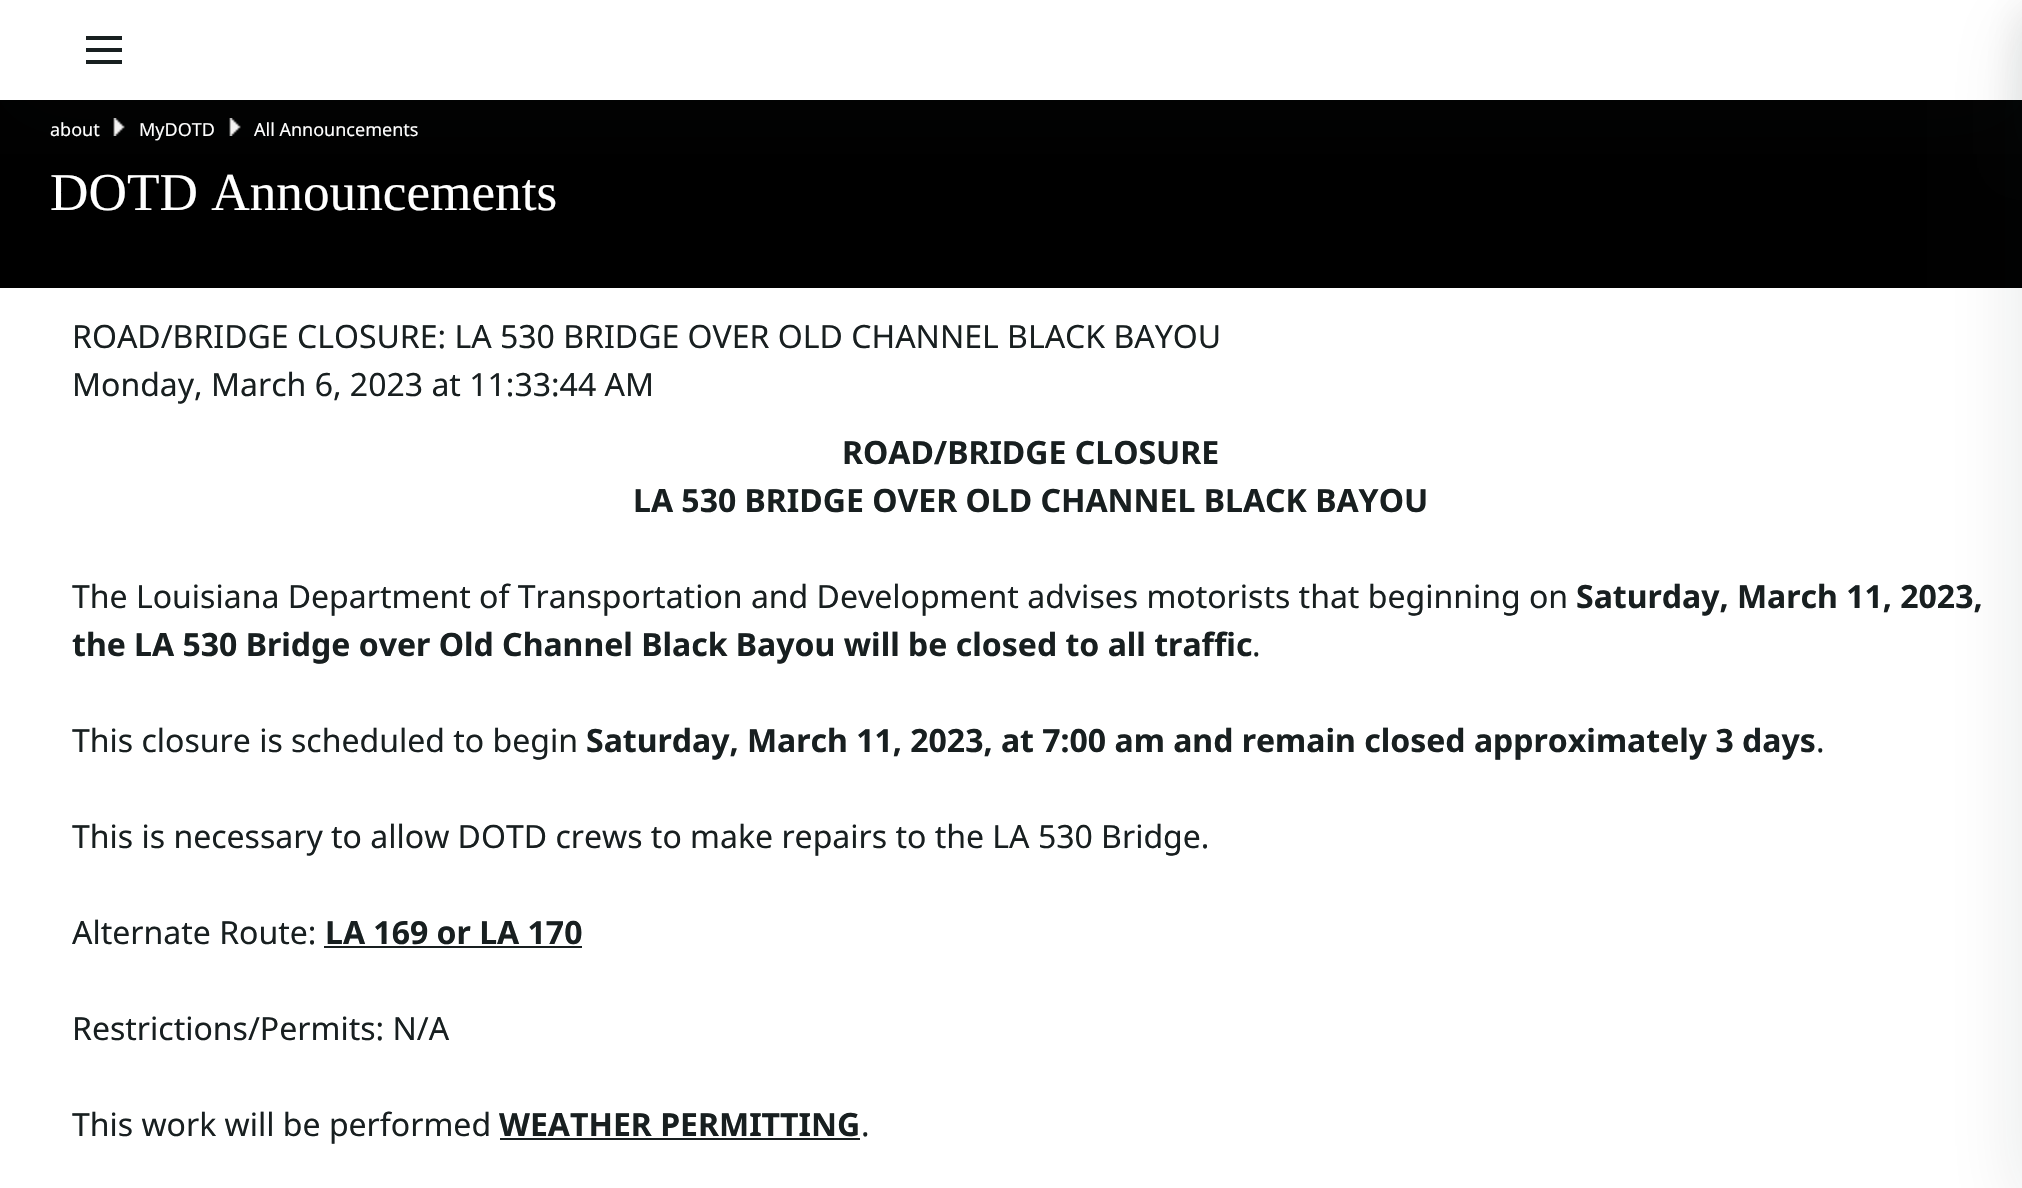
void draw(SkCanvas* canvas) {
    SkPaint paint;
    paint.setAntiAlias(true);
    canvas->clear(0xFFFFFFFF);
    paint.setColor(0xFF000000);
    canvas->drawRect(SkRect::MakeXYWH(0, 100, 2022, 188), paint);
    canvas->drawImageRect(SkImages::DeferredFromEncodedData(SkData::MakeFromFileName("img1.png")), SkRect::MakeXYWH(113, 118, 12, 18), SkSamplingOptions());
    canvas->drawImageRect(SkImages::DeferredFromEncodedData(SkData::MakeFromFileName("img1.png")), SkRect::MakeXYWH(229, 118, 12, 18), SkSamplingOptions());
    canvas->save();
    canvas->clipRect(SkRect::MakeXYWH(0, 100, 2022, 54));
    paint.setColor(0x1A181F20);
    paint.setMaskFilter(SkMaskFilter::MakeBlur(kNormal_SkBlurStyle, 40));
    canvas->drawRect(SkRect::MakeXYWH(0, 20, 2022, 100), paint);
    paint.setMaskFilter(nullptr);
    canvas->restore();
    paint.setColor(0xFF181F20);
    canvas->drawRect(SkRect::MakeXYWH(86, 36, 36, 4), paint);
    canvas->drawRect(SkRect::MakeXYWH(86, 48, 36, 4), paint);
    canvas->drawRect(SkRect::MakeXYWH(86, 60, 36, 4), paint);
    SkFont font1(fontMgr->matchFamilyStyle("Noto Sans", SkFontStyle::Normal()), 18);
    font1.setSubpixel(true);
    paint.setColor(0xFFFFFFFF);
    canvas->drawString("about", 50, 136, font1, paint);
    canvas->drawString("MyDOTD", 139, 136, font1, paint);
    canvas->drawString("All Announcements", 254, 136, font1, paint);
    SkFont font2(fontMgr->matchFamilyStyle("Liberation Serif", SkFontStyle::Normal()), 53.25f);
    font2.setSubpixel(true);
    canvas->drawString("DOTD Announcements", 50, 210, font2, paint);
    paint.setColor(0x1A181F20);
    paint.setMaskFilter(SkMaskFilter::MakeBlur(kNormal_SkBlurStyle, 40));
    canvas->drawRect(SkRect::MakeXYWH(2022, 20, 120, 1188), paint);
    paint.setMaskFilter(nullptr);
    paint.setMaskFilter(SkMaskFilter::MakeBlur(kNormal_SkBlurStyle, 20));
    canvas->drawRect(SkRect::MakeXYWH(2022, 10, 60, 144), paint);
    paint.setMaskFilter(nullptr);
    SkFont font3(fontMgr->matchFamilyStyle("Noto Sans", SkFontStyle::Normal()), 32);
    font3.setSubpixel(true);
    paint.setColor(0xFF181F20);
    canvas->drawString("ROAD/BRIDGE CLOSURE: LA 530 BRIDGE OVER OLD CHANNEL BLACK BAYOU", 72, 348, font3, paint);
    canvas->drawString("Monday, March 6, 2023 at 11:33:44 AM", 72, 396, font3, paint);
    SkFont font4(fontMgr->matchFamilyStyle("Noto Sans", SkFontStyle::Bold()), 32);
    font4.setSubpixel(true);
    canvas->drawString("ROAD/BRIDGE CLOSURE", 842, 464, font4, paint);
    canvas->drawString("LA 530 BRIDGE OVER OLD CHANNEL BLACK BAYOU", 633, 512, font4, paint);
    canvas->drawString("The Louisiana Department of Transportation and Development advises motorists that beginning on", 72, 608, font3, paint);
    canvas->drawString("Saturday, March 11, 2023,", 1576, 608, font4, paint);
    canvas->drawString("the LA 530 Bridge over Old Channel Black Bayou will be closed to all traffic", 72, 656, font4, paint);
    canvas->drawString(".", 1252, 656, font3, paint);
    canvas->drawString("This closure is scheduled to begin", 72, 752, font3, paint);
    canvas->drawString("Saturday, March 11, 2023, at 7:00 am and remain closed approximately 3 days", 586, 752, font4, paint);
    canvas->drawString(".", 1816, 752, font3, paint);
    canvas->drawString("This is necessary to allow DOTD crews to make repairs to the LA 530 Bridge.", 72, 848, font3, paint);
    canvas->drawString("Alternate Route:", 72, 944, font3, paint);
    canvas->drawString("LA 169 or LA 170", 325, 944, font4, paint);
    canvas->drawRect(SkRect::MakeXYWH(324, 946, 258, 2), paint);
    canvas->drawString("Restrictions/Permits: N/A", 72, 1040, font3, paint);
    canvas->drawString("This work will be performed", 72, 1136, font3, paint);
    canvas->drawString("WEATHER PERMITTING", 499, 1136, font4, paint);
    canvas->drawRect(SkRect::MakeXYWH(500, 1138, 360, 2), paint);
    canvas->drawString(".", 861, 1136, font3, paint);
}
